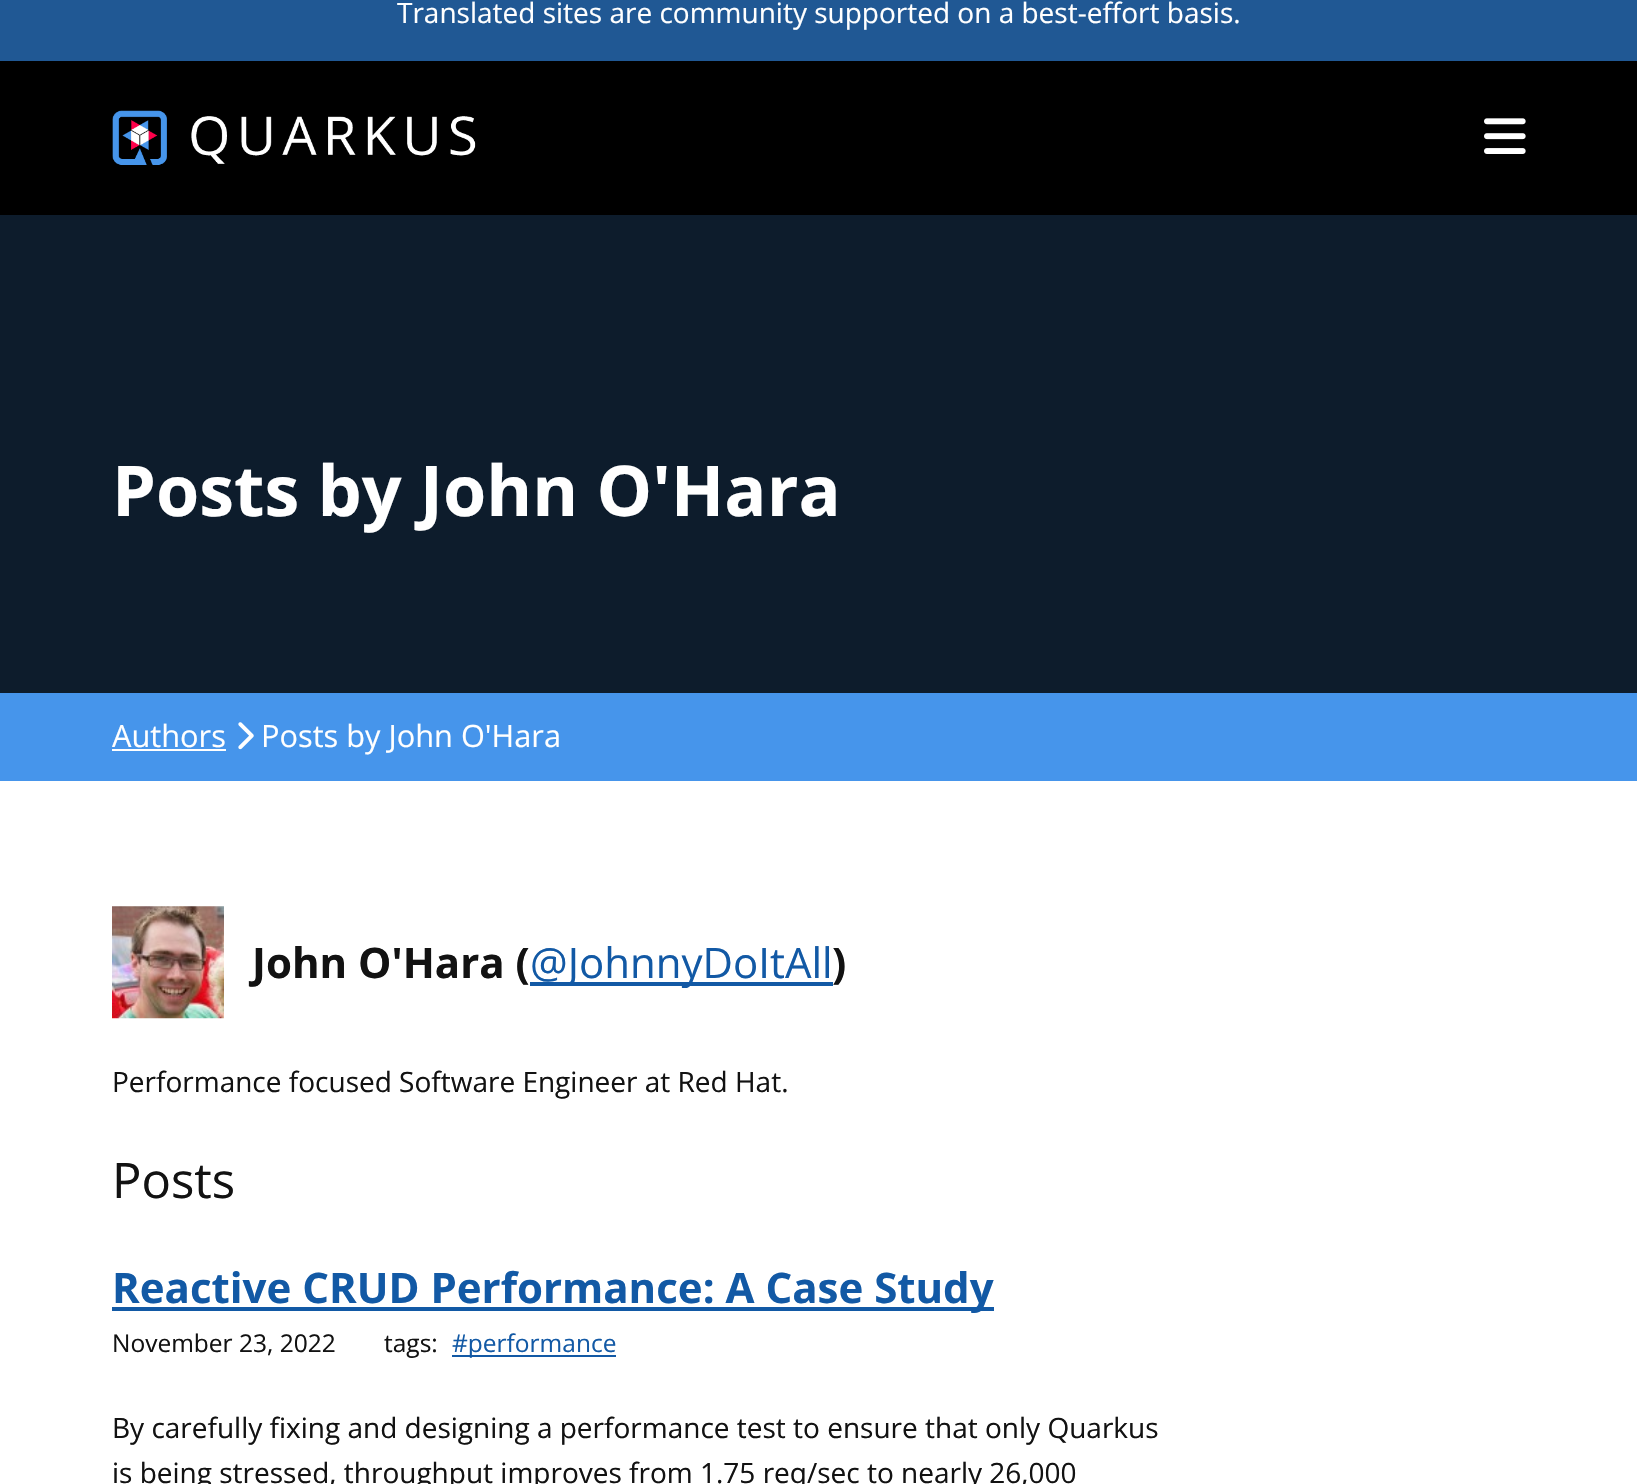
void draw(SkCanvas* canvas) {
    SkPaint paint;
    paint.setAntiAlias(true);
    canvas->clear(0xFFFFFFFF);
    paint.setColor(0xFF205894);
    canvas->drawRect(SkRect::MakeXYWH(0, 0, 1637, 61), paint);
    SkFont font1(fontMgr->matchFamilyStyle("Open Sans", SkFontStyle::Normal()), 28);
    font1.setSubpixel(true);
    paint.setColor(0xFFFFFFFF);
    canvas->drawString("Translated sites are community supported on a best-effort basis.", 397, 23, font1, paint);
    paint.setColor(0xFF000000);
    canvas->drawRect(SkRect::MakeXYWH(0, 61, 1637, 154), paint);
    canvas->drawImageRect(SkImages::DeferredFromEncodedData(SkData::MakeFromFileName("img1.png")), SkRect::MakeXYWH(112, 110, 364, 55), SkSamplingOptions());
    canvas->drawImageRect(SkImages::DeferredFromEncodedData(SkData::MakeFromFileName("img2.png")), SkRect::MakeXYWH(1484, 118, 42, 36), SkSamplingOptions());
    paint.setColor(0xFF0D1C2C);
    canvas->drawRect(SkRect::MakeXYWH(0, 215, 1637, 478), paint);
    SkFont font2(fontMgr->matchFamilyStyle("Open Sans", SkFontStyle::Bold()), 70);
    font2.setSubpixel(true);
    paint.setColor(0xFFFFFFFF);
    canvas->drawString("Posts by John O'Hara", 112, 516, font2, paint);
    paint.setColor(0xFF4695EB);
    canvas->drawRect(SkRect::MakeXYWH(0, 693, 1637, 88), paint);
    SkFont font3(fontMgr->matchFamilyStyle("Open Sans", SkFontStyle::Normal()), 30.75f);
    font3.setSubpixel(true);
    paint.setColor(0xFFFFFFFF);
    canvas->drawString("Authors", 112, 747, font3, paint);
    canvas->drawRect(SkRect::MakeXYWH(112, 749, 114, 2), paint);
    canvas->drawImageRect(SkImages::DeferredFromEncodedData(SkData::MakeFromFileName("img3.png")), SkRect::MakeXYWH(238, 722, 16, 28), SkSamplingOptions());
    canvas->drawString("Posts by John O'Hara", 261, 747, font3, paint);
    canvas->drawImageRect(SkImages::DeferredFromEncodedData(SkData::MakeFromFileName("img4.png")), SkRect::MakeXYWH(112, 906, 112, 113), SkSamplingOptions());
    SkFont font4(fontMgr->matchFamilyStyle("Open Sans", SkFontStyle::Bold()), 42);
    font4.setSubpixel(true);
    paint.setColor(0xFF121212);
    canvas->drawString("John O'Hara (", 252, 978, font4, paint);
    paint.setColor(0xFF1259A5);
    canvas->drawRect(SkRect::MakeXYWH(530, 982, 303, 4), paint);
    SkFont font5(fontMgr->matchFamilyStyle("Open Sans", SkFontStyle::Normal()), 42);
    font5.setSubpixel(true);
    canvas->drawString("@JohnnyDoItAll", 530, 978, font5, paint);
    paint.setColor(0xFF121212);
    canvas->drawString(")", 832, 978, font4, paint);
    canvas->drawString("Performance focused Software Engineer at Red Hat.", 112, 1092, font1, paint);
    SkFont font6(fontMgr->matchFamilyStyle("Open Sans", SkFontStyle::Normal()), 49);
    font6.setSubpixel(true);
    canvas->drawString("Posts", 112, 1198, font6, paint);
    paint.setColor(0xFF1259A5);
    canvas->drawRect(SkRect::MakeXYWH(112, 1307, 882, 4), paint);
    canvas->drawString("Reactive CRUD Performance: A Case Study", 112, 1303, font4, paint);
    SkFont font7(fontMgr->matchFamilyStyle("Open Sans", SkFontStyle::Normal()), 24.5f);
    font7.setSubpixel(true);
    paint.setColor(0xFF121212);
    canvas->drawString("November 23, 2022", 112, 1352, font7, paint);
    canvas->drawString("tags:", 384, 1352, font7, paint);
    paint.setColor(0xFF1259A5);
    canvas->drawRect(SkRect::MakeXYWH(452, 1355, 164, 2), paint);
    canvas->drawString("#performance", 452, 1352, font7, paint);
    paint.setColor(0xFF121212);
    canvas->drawString("By carefully fixing and designing a performance test to ensure that only Quarkus", 112, 1438, font1, paint);
    canvas->drawString("is being stressed, throughput improves from 1.75 req/sec to nearly 26,000", 112, 1483, font1, paint);
}
